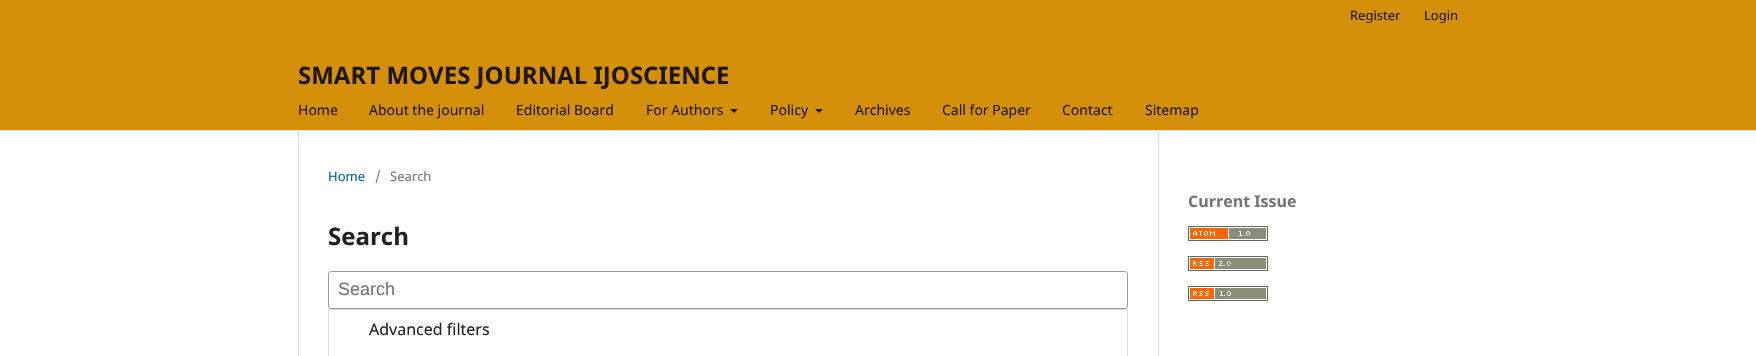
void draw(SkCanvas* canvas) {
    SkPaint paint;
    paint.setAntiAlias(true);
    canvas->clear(0xFFFFFFFF);
    paint.setColor(0xFFD4900B);
    canvas->drawRect(SkRect::MakeXYWH(0, 0, 1756, 130), paint);
    paint.setColor(0xFFDDDDDD);
    canvas->drawRect(SkRect::MakeXYWH(0, 130, 1756, 1), paint);
    SkFont font1(fontMgr->matchFamilyStyle("Noto Sans", SkFontStyle::Normal()), 13);
    font1.setSubpixel(true);
    paint.setColor(0xFF221702);
    canvas->drawString("Register", 1350, 20, font1, paint);
    canvas->drawString("Login", 1424, 20, font1, paint);
    SkFont font2(fontMgr->matchFamilyStyle("Noto Sans", SkFontStyle::Normal()), 14);
    font2.setSubpixel(true);
    canvas->drawString("Home", 298, 115, font2, paint);
    canvas->drawString("About the journal", 369, 115, font2, paint);
    canvas->drawString("Editorial Board", 516, 115, font2, paint);
    canvas->drawString("For Authors", 646, 115, font2, paint);
    canvas->drawPath(SkPathBuilder().moveTo(730, 109).lineTo(738, 109).lineTo(734, 113).close().detach(), paint);
    canvas->drawString("Policy", 770, 115, font2, paint);
    canvas->drawPath(SkPathBuilder().moveTo(815, 109).lineTo(823, 109).lineTo(819, 113).close().detach(), paint);
    canvas->drawString("Archives", 855, 115, font2, paint);
    canvas->drawString("Call for Paper", 942, 115, font2, paint);
    canvas->drawString("Contact", 1062, 115, font2, paint);
    canvas->drawString("Sitemap", 1145, 115, font2, paint);
    SkFont font3(fontMgr->matchFamilyStyle("Noto Sans", SkFontStyle::Bold()), 24);
    font3.setSubpixel(true);
    canvas->drawString("SMART MOVES JOURNAL IJOSCIENCE", 298, 84, font3, paint);
    paint.setColor(0xFFDDDDDD);
    canvas->drawRect(SkRect::MakeXYWH(298, 131, 1, 225), paint);
    paint.setColor(0xFF006798);
    canvas->drawString("Home", 328, 181, font1, paint);
    paint.setColor(0xFF757575);
    canvas->drawString("/", 375, 181, font1, paint);
    canvas->drawString("Search", 390, 181, font1, paint);
    paint.setColor(0xFF212121);
    canvas->drawString("Search", 328, 245, font3, paint);
    paint.setStyle(SkPaint::kStroke_Style);
    paint.setStrokeWidth(1);
    paint.setColor(0xFF999999);
    canvas->drawRoundRect(SkRect::MakeXYWH(328.5f, 271.5f, 799, 37), 2.5f, 2.5f, paint);
    SkFont font4(fontMgr->matchFamilyStyle("Liberation Sans", SkFontStyle::Normal()), 18);
    font4.setSubpixel(true);
    paint.setStyle(SkPaint::kFill_Style);
    paint.setColor(0xFF757575);
    canvas->drawString("Search", 338, 295, font4, paint);
    paint.setStyle(SkPaint::kStroke_Style);
    paint.setColor(0xFFDDDDDD);
    canvas->drawRect(SkRect::MakeXYWH(328.5f, 309.5f, 799, 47), paint);
    SkFont font5(fontMgr->matchFamilyStyle("Noto Sans", SkFontStyle::Normal()), 16);
    font5.setSubpixel(true);
    paint.setStyle(SkPaint::kFill_Style);
    paint.setColor(0xFF212121);
    canvas->drawString("Advanced filters", 369, 335, font5, paint);
    paint.setColor(0xFFDDDDDD);
    canvas->drawRect(SkRect::MakeXYWH(1158, 131, 1, 225), paint);
    SkFont font6(fontMgr->matchFamilyStyle("Noto Sans", SkFontStyle::Bold()), 16);
    font6.setSubpixel(true);
    paint.setColor(0xFF757575);
    canvas->drawString("Current Issue", 1188, 207, font6, paint);
    canvas->drawImageRect(SkImages::DeferredFromEncodedData(SkData::MakeFromFileName("img1.png")), SkRect::MakeXYWH(1188, 226, 80, 15), SkSamplingOptions());
    canvas->drawImageRect(SkImages::DeferredFromEncodedData(SkData::MakeFromFileName("img2.png")), SkRect::MakeXYWH(1188, 256, 80, 15), SkSamplingOptions());
    canvas->drawImageRect(SkImages::DeferredFromEncodedData(SkData::MakeFromFileName("img3.png")), SkRect::MakeXYWH(1188, 286, 80, 15), SkSamplingOptions());
}
